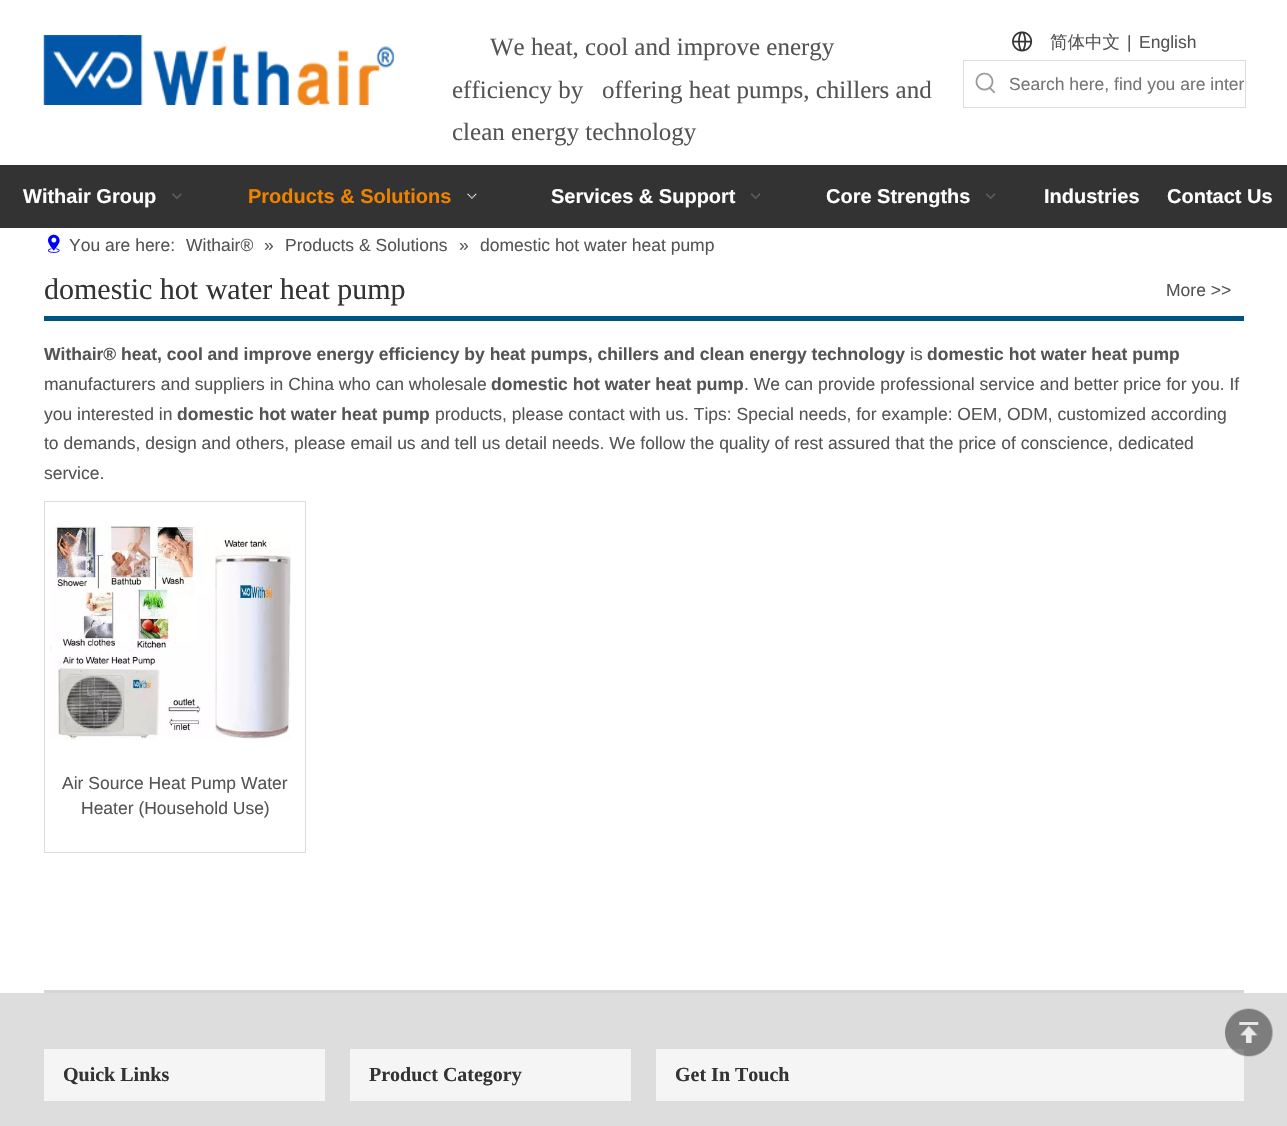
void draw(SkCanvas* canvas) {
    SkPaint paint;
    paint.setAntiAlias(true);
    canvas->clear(0xFFFFFFFF);
    canvas->drawImageRect(SkImages::DeferredFromEncodedData(SkData::MakeFromFileName("img1.png")), SkRect::MakeXYWH(43, 35, 351, 70), SkSamplingOptions());
    SkFont font1(fontMgr->matchFamilyStyle("Liberation Serif", SkFontStyle::Normal()), 25);
    font1.setSubpixel(true);
    paint.setColor(0xFF545454);
    canvas->drawString("We heat, cool and improve energy", 490, 55, font1, paint);
    canvas->drawString("efficiency by   offering heat pumps, chillers and", 452, 98, font1, paint);
    canvas->drawString("clean energy technology", 452, 140, font1, paint);
    canvas->drawImageRect(SkImages::DeferredFromEncodedData(SkData::MakeFromFileName("img2.png")), SkRect::MakeXYWH(1012, 31, 21, 21), SkSamplingOptions());
    SkFont font2(fontMgr->matchFamilyStyle("WenQuanYi Zen Hei", SkFontStyle(500, SkFontStyle::kNormal_Width, SkFontStyle::kUpright_Slant)), 17.5f);
    font2.setSubpixel(true);
    canvas->drawString("简体中文", 1050, 48, font2, paint);
    SkFont font3(fontMgr->matchFamilyStyle("Liberation Sans", SkFontStyle::Normal()), 17.5f);
    font3.setSubpixel(true);
    canvas->drawString("|", 1127, 48, font3, paint);
    canvas->drawString("English", 1139, 48, font3, paint);
    paint.setStyle(SkPaint::kStroke_Style);
    paint.setStrokeWidth(1);
    paint.setColor(0xFFDDDDDD);
    canvas->drawRect(SkRect::MakeXYWH(963.5f, 60.5f, 282, 47), paint);
    canvas->drawImageRect(SkImages::DeferredFromEncodedData(SkData::MakeFromFileName("img3.png")), SkRect::MakeXYWH(975, 72, 21, 22), SkSamplingOptions());
    paint.setStyle(SkPaint::kFill_Style);
    paint.setColor(0xFF757575);
    canvas->drawString("Search here, find you are inter", 1009, 90, font3, paint);
    paint.setColor(0xFF333333);
    canvas->drawRect(SkRect::MakeXYWH(0, 165, 1287, 63), paint);
    SkFont font4(fontMgr->matchFamilyStyle("Liberation Sans", SkFontStyle::Bold()), 20);
    font4.setSubpixel(true);
    paint.setColor(0xFFFFFFFF);
    canvas->drawString("Withair Group", 23, 203, font4, paint);
    canvas->drawImageRect(SkImages::DeferredFromEncodedData(SkData::MakeFromFileName("img4.png")), SkRect::MakeXYWH(172, 193, 10, 6), SkSamplingOptions());
    paint.setColor(0xFFEF8300);
    canvas->drawString("Products & Solutions", 248, 203, font4, paint);
    canvas->drawImageRect(SkImages::DeferredFromEncodedData(SkData::MakeFromFileName("img5.png")), SkRect::MakeXYWH(467, 193, 10, 6), SkSamplingOptions());
    paint.setColor(0xFFFFFFFF);
    canvas->drawString("Services & Support", 551, 203, font4, paint);
    canvas->drawImageRect(SkImages::DeferredFromEncodedData(SkData::MakeFromFileName("img6.png")), SkRect::MakeXYWH(751, 193, 9, 6), SkSamplingOptions());
    canvas->drawString("Core Strengths", 826, 203, font4, paint);
    canvas->drawImageRect(SkImages::DeferredFromEncodedData(SkData::MakeFromFileName("img6.png")), SkRect::MakeXYWH(986, 193, 9, 6), SkSamplingOptions());
    canvas->drawString("Industries", 1044, 203, font4, paint);
    canvas->drawString("Contact Us", 1167, 203, font4, paint);
    canvas->drawImageRect(SkImages::DeferredFromEncodedData(SkData::MakeFromFileName("img7.png")), SkRect::MakeXYWH(47, 234, 13, 19), SkSamplingOptions());
    paint.setColor(0xFF545454);
    canvas->drawString("You are here:", 69, 251, font3, paint);
    canvas->drawString("Withair®", 186, 251, font3, paint);
    canvas->drawString("»", 264, 251, font3, paint);
    canvas->drawString("Products & Solutions", 285, 251, font3, paint);
    canvas->drawString("»", 459, 251, font3, paint);
    canvas->drawString("domestic hot water heat pump", 480, 251, font3, paint);
    paint.setColor(0xFF005483);
    canvas->drawRect(SkRect::MakeXYWH(44, 316, 1200, 5), paint);
    SkFont font5(fontMgr->matchFamilyStyle("Liberation Serif", SkFontStyle::Normal()), 30);
    font5.setSubpixel(true);
    paint.setColor(0xFF333333);
    canvas->drawString("domestic hot water heat pump", 44, 299, font5, paint);
    paint.setColor(0xFF545454);
    canvas->drawString("More >>", 1166, 296, font3, paint);
    SkFont font6(fontMgr->matchFamilyStyle("Liberation Sans", SkFontStyle::Bold()), 17.5f);
    font6.setSubpixel(true);
    canvas->drawString("Withair® heat, cool and improve energy efficiency by heat pumps, chillers and clean energy technology", 44, 360, font6, paint);
    canvas->drawString("is", 910, 360, font3, paint);
    canvas->drawString("domestic hot water heat pump", 927, 360, font6, paint);
    canvas->drawString("manufacturers and suppliers in China who can wholesale", 44, 390, font3, paint);
    canvas->drawString("domestic hot water heat pump", 491, 390, font6, paint);
    canvas->drawString(". We can provide professional service and better price for you. If", 744, 390, font3, paint);
    canvas->drawString("you interested in", 44, 420, font3, paint);
    canvas->drawString("domestic hot water heat pump", 177, 420, font6, paint);
    canvas->drawString("products, please contact with us. Tips: Special needs, for example: OEM, ODM, customized according", 435, 420, font3, paint);
    canvas->drawString("to demands, design and others, please email us and tell us detail needs. We follow the quality of rest assured that the price of conscience, dedicated", 44, 449, font3, paint);
    canvas->drawString("service.", 44, 479, font3, paint);
    paint.setStyle(SkPaint::kStroke_Style);
    paint.setColor(0xFFDCDCDC);
    canvas->drawRect(SkRect::MakeXYWH(44.5f, 501.5f, 261, 351), paint);
    canvas->drawImageRect(SkImages::DeferredFromEncodedData(SkData::MakeFromFileName("img8.png")), SkRect::MakeXYWH(50, 526, 241, 214), SkSamplingOptions());
    paint.setStyle(SkPaint::kFill_Style);
    paint.setColor(0xFF545454);
    canvas->drawString("Air Source Heat Pump Water", 62, 789, font3, paint);
    canvas->drawString("Heater (Household Use)", 81, 814, font3, paint);
    paint.setColor(0xFFD6D6D6);
    canvas->drawRect(SkRect::MakeXYWH(44, 990, 1200, 3), paint);
    paint.setColor(0xFFDDDDDD);
    canvas->drawRect(SkRect::MakeXYWH(0, 993, 1287, 133), paint);
    paint.setColor(0xFFF5F5F5);
    canvas->drawRect(SkRect::MakeXYWH(656, 1049, 588, 52), paint);
    canvas->drawImageRect(SkImages::DeferredFromEncodedData(SkData::MakeFromFileName("img9.png")), SkRect::MakeXYWH(1225, 1008, 48, 49), SkSamplingOptions());
    canvas->drawRect(SkRect::MakeXYWH(44, 1049, 281, 52), paint);
    SkFont font7(fontMgr->matchFamilyStyle("Liberation Serif", SkFontStyle::Bold()), 20);
    font7.setSubpixel(true);
    paint.setColor(0xFF333333);
    canvas->drawString("Quick Links", 63, 1081, font7, paint);
    paint.setColor(0xFFF5F5F5);
    canvas->drawRect(SkRect::MakeXYWH(350, 1049, 281, 52), paint);
    paint.setColor(0xFF333333);
    canvas->drawString("Product Category", 369, 1081, font7, paint);
    canvas->drawString("Get In Touch", 675, 1081, font7, paint);
}
